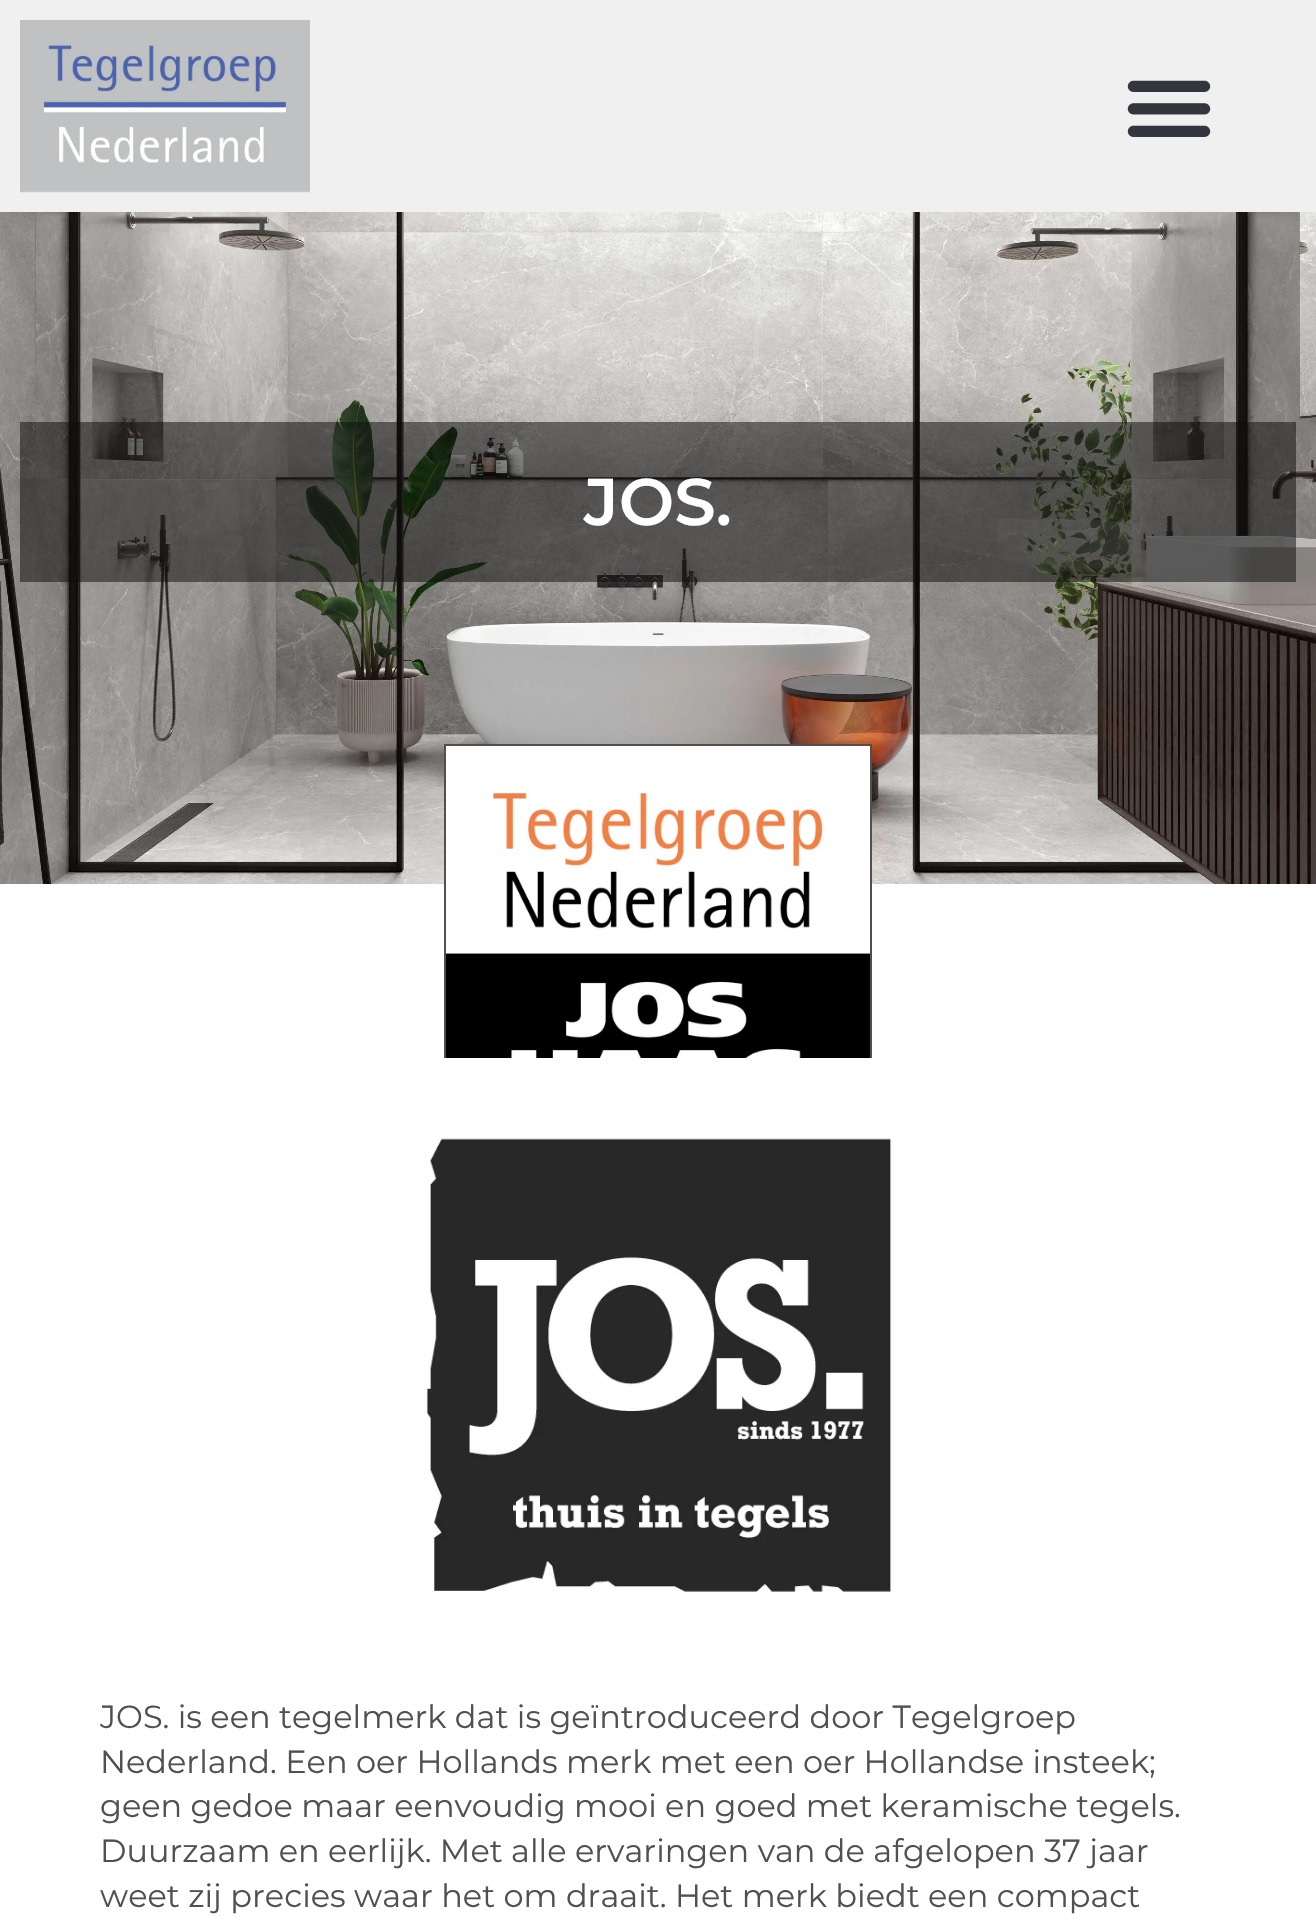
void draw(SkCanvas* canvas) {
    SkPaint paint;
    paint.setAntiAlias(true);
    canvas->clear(0xFFFFFFFF);
    paint.setColor(0xFFF0F0F0);
    canvas->drawRect(SkRect::MakeXYWH(0, 0, 1316, 212), paint);
    canvas->drawImageRect(SkImages::DeferredFromEncodedData(SkData::MakeFromFileName("img1.png")), SkRect::MakeXYWH(20, 20, 290, 173), SkSamplingOptions());
    canvas->drawImageRect(SkImages::DeferredFromEncodedData(SkData::MakeFromFileName("img2.png")), SkRect::MakeXYWH(1127, 80, 84, 57), SkSamplingOptions());
    canvas->drawImageRect(SkImages::DeferredFromEncodedData(SkData::MakeFromFileName("img3.png")), SkRect::MakeXYWH(0, 212, 1316, 672), SkSamplingOptions());
    paint.setColor(0x820C0C0C);
    canvas->drawRect(SkRect::MakeXYWH(20, 422, 1276, 160), paint);
    SkFont font1(fontMgr->matchFamilyStyle("Montserrat", SkFontStyle(600, SkFontStyle::kNormal_Width, SkFontStyle::kUpright_Slant)), 66);
    font1.setSubpixel(true);
    paint.setColor(0xFFFFFFFF);
    canvas->drawString("JOS.", 584, 525, font1, paint);
    paint.setStyle(SkPaint::kStroke_Style);
    paint.setStrokeWidth(2);
    paint.setColor(0xFF505050);
    canvas->drawRect(SkRect::MakeXYWH(445, 745, 426, 426), paint);
    canvas->drawImageRect(SkImages::DeferredFromEncodedData(SkData::MakeFromFileName("img4.png")), SkRect::MakeXYWH(446, 746, 424, 312), SkSamplingOptions());
    canvas->drawImageRect(SkImages::DeferredFromEncodedData(SkData::MakeFromFileName("img5.png")), SkRect::MakeXYWH(424, 1058, 468, 534), SkSamplingOptions());
    SkFont font2(fontMgr->matchFamilyStyle("Montserrat", SkFontStyle::Normal()), 32);
    font2.setSubpixel(true);
    paint.setStyle(SkPaint::kFill_Style);
    canvas->drawString("JOS. is een tegelmerk dat is geïntroduceerd door Tegelgroep", 100, 1728, font2, paint);
    canvas->drawString("Nederland. Een oer Hollands merk met een oer Hollandse insteek;", 100, 1773, font2, paint);
    canvas->drawString("geen gedoe maar eenvoudig mooi en goed met keramische tegels.", 100, 1817, font2, paint);
    canvas->drawString("Duurzaam en eerlijk. Met alle ervaringen van de afgelopen 37 jaar", 100, 1862, font2, paint);
    canvas->drawString("weet zij precies waar het om draait. Het merk biedt een compact", 100, 1907, font2, paint);
}
